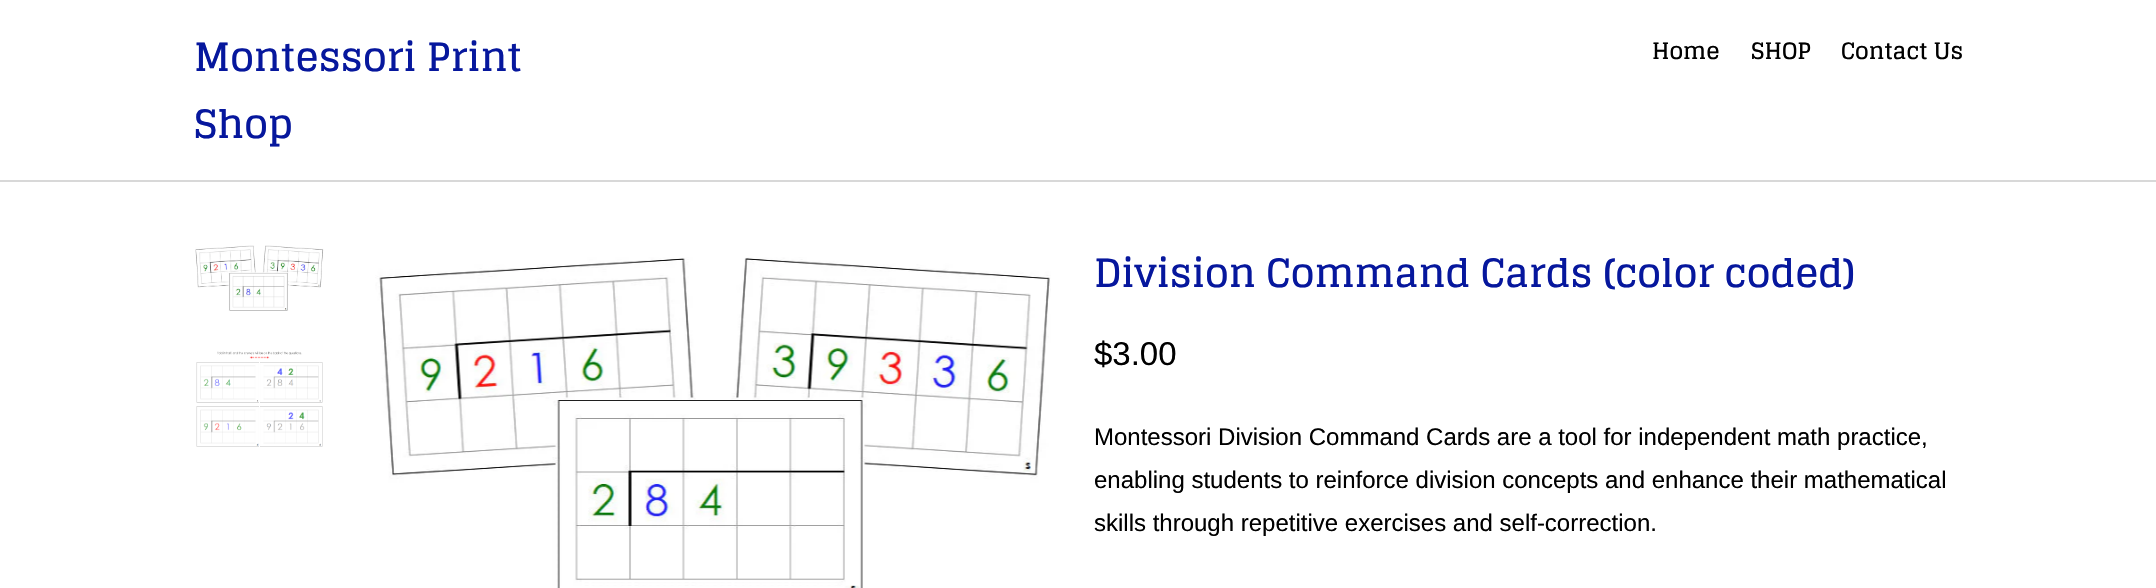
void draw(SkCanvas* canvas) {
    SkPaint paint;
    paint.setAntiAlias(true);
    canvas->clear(0xFFFFFFFF);
    paint.setColor(0xFFD8D8D8);
    canvas->drawRect(SkRect::MakeXYWH(0, 180, 2156, 2), paint);
    SkFont font1(fontMgr->matchFamilyStyle("Glegoo", SkFontStyle::Bold()), 39);
    font1.setSubpixel(true);
    paint.setColor(0xFF06179D);
    canvas->drawString("Montessori Print", 194, 71, font1, paint);
    canvas->drawString("Shop", 194, 138, font1, paint);
    SkFont font2(fontMgr->matchFamilyStyle("Glegoo", SkFontStyle::Bold()), 22.5f);
    font2.setSubpixel(true);
    paint.setColor(0xFF000000);
    canvas->drawString("Home", 1652, 59, font2, paint);
    canvas->drawString("SHOP", 1751, 59, font2, paint);
    canvas->drawString("Contact Us", 1841, 59, font2, paint);
    canvas->drawImageRect(SkImages::DeferredFromEncodedData(SkData::MakeFromFileName("img1.png")), SkRect::MakeXYWH(195, 245, 129, 66), SkSamplingOptions());
    canvas->drawImageRect(SkImages::DeferredFromEncodedData(SkData::MakeFromFileName("img2.png")), SkRect::MakeXYWH(196, 351, 127, 96), SkSamplingOptions());
    canvas->drawImageRect(SkImages::DeferredFromEncodedData(SkData::MakeFromFileName("img3.png")), SkRect::MakeXYWH(375, 257, 676, 331), SkSamplingOptions());
    paint.setColor(0xFF06179D);
    canvas->drawString("Division Command Cards (color coded)", 1094, 287, font1, paint);
    SkFont font3(fontMgr->matchFamilyStyle("Liberation Sans", SkFontStyle::Normal()), 33);
    font3.setSubpixel(true);
    paint.setColor(0xFF000000);
    canvas->drawString("$3.00", 1094, 365, font3, paint);
    SkFont font4(fontMgr->matchFamilyStyle("Liberation Sans", SkFontStyle::Normal()), 24);
    font4.setSubpixel(true);
    canvas->drawString("Montessori Division Command Cards are a tool for independent math practice,", 1094, 445, font4, paint);
    canvas->drawString("enabling students to reinforce division concepts and enhance their mathematical", 1094, 488, font4, paint);
    canvas->drawString("skills through repetitive exercises and self-correction.", 1094, 531, font4, paint);
}
